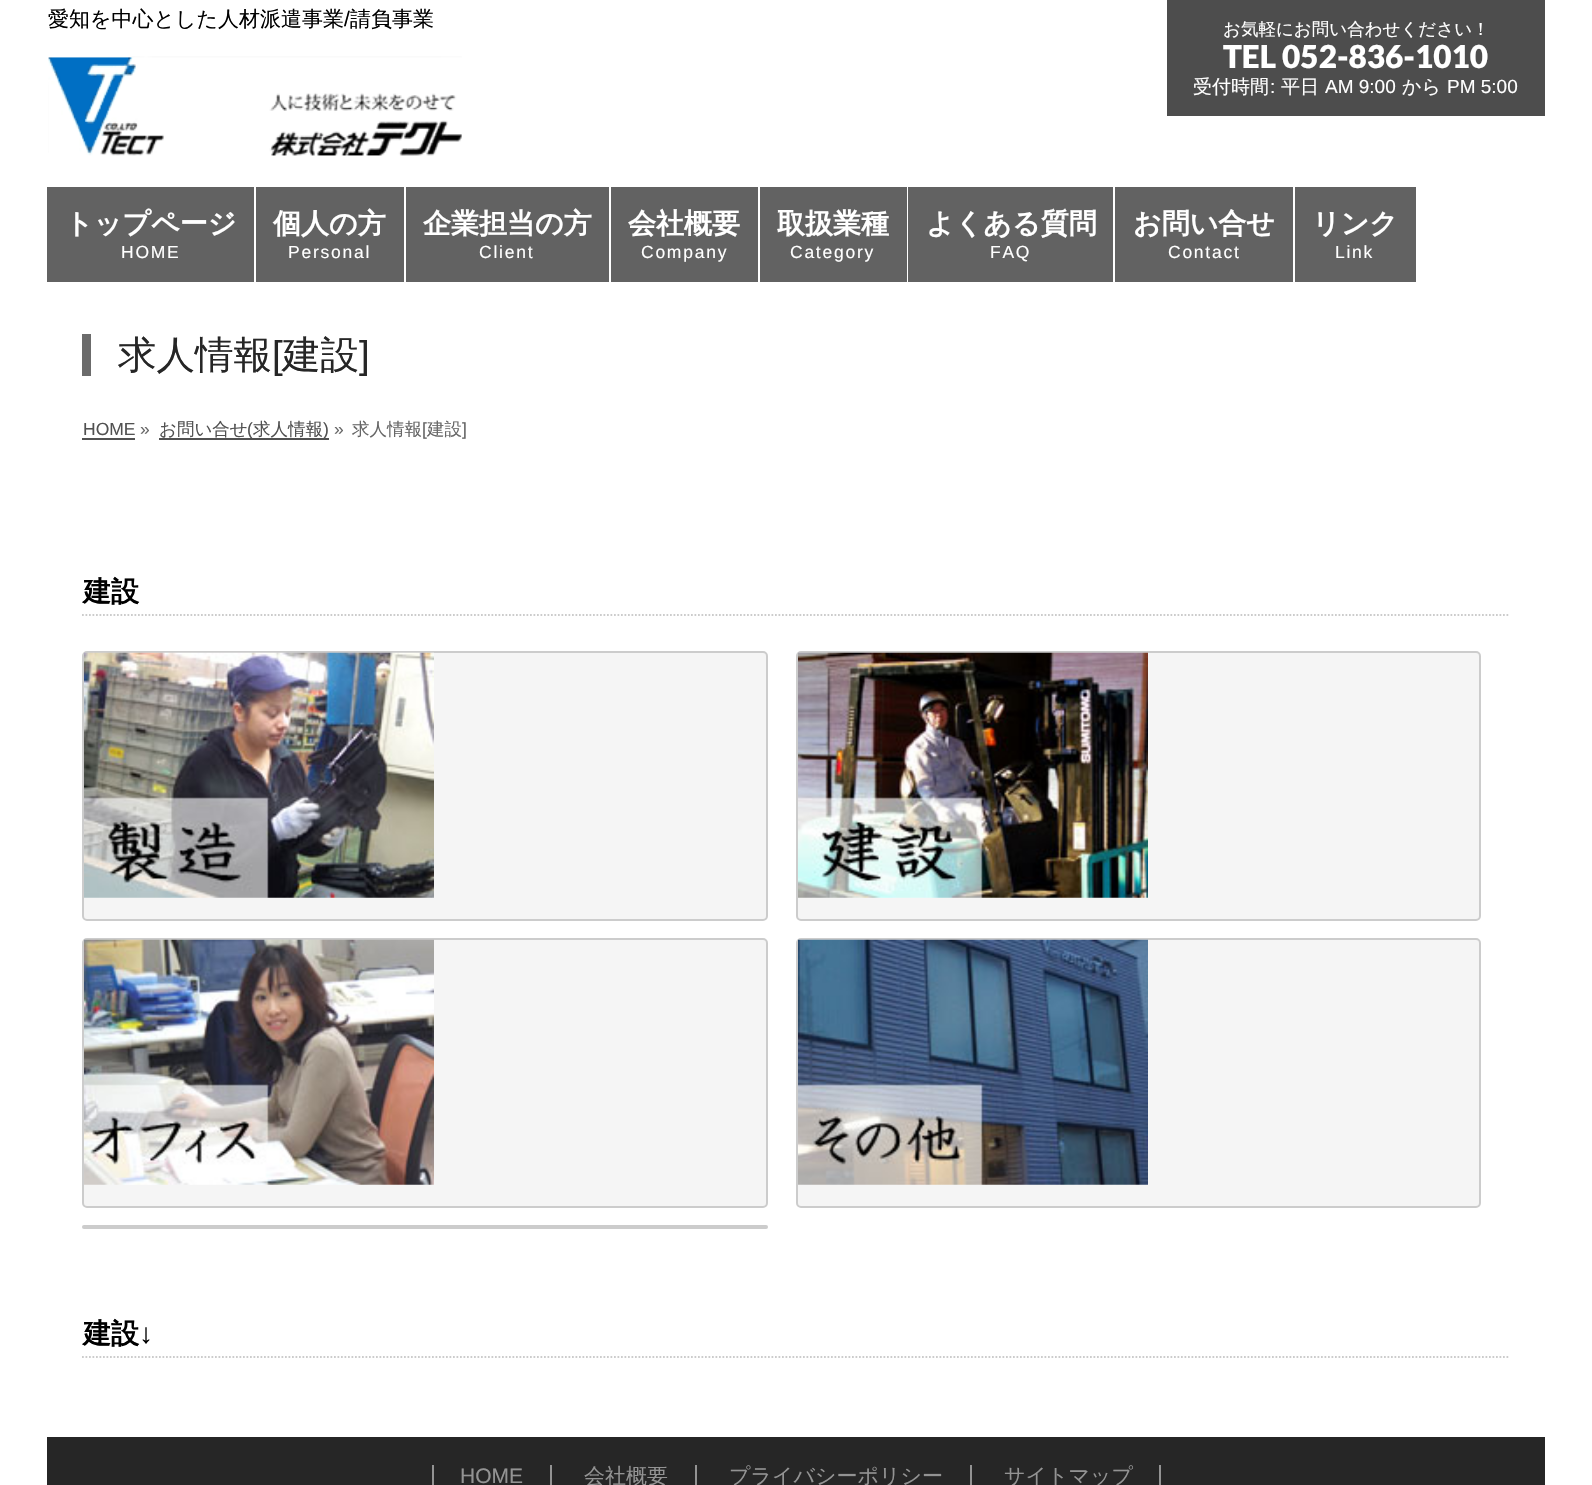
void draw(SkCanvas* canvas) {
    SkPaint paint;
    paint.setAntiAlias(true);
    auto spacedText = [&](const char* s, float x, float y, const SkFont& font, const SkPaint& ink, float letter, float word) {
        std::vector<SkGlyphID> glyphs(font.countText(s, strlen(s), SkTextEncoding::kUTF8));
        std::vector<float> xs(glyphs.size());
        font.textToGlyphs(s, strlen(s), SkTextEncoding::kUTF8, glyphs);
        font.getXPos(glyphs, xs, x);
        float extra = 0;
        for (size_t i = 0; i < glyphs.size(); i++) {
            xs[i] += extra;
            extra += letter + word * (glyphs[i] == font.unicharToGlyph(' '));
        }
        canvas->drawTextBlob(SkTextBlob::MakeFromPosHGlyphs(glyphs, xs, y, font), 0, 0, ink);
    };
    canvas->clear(0xFFFFFFFF);
    SkFont font1(fontMgr->matchFamilyStyle("WenQuanYi Zen Hei", SkFontStyle(500, SkFontStyle::kNormal_Width, SkFontStyle::kUpright_Slant)), 21);
    font1.setSubpixel(true);
    paint.setColor(0xFF000000);
    canvas->drawString("愛知を中心とした人材派遣事業", 48, 26, font1, paint);
    SkFont font2(fontMgr->matchFamilyStyle("Liberation Sans", SkFontStyle::Normal()), 21);
    font2.setSubpixel(true);
    canvas->drawString("/", 344, 26, font2, paint);
    canvas->drawString("請負事業", 350, 26, font1, paint);
    canvas->drawImageRect(SkImages::DeferredFromEncodedData(SkData::MakeFromFileName("img1.png")), SkRect::MakeXYWH(48, 56, 414, 100), SkSamplingOptions());
    paint.setColor(0xFF4D4D4D);
    canvas->drawRect(SkRect::MakeXYWH(1167, 0, 378, 116), paint);
    SkFont font3(fontMgr->matchFamilyStyle("WenQuanYi Zen Hei", SkFontStyle(500, SkFontStyle::kNormal_Width, SkFontStyle::kUpright_Slant)), 17.5f);
    font3.setSubpixel(true);
    paint.setColor(0xFFFFFFFF);
    canvas->drawString("お気軽にお問い合わせください！", 1223, 35, font3, paint);
    SkFont font4(fontMgr->matchFamilyStyle("Lato", SkFontStyle(900, SkFontStyle::kNormal_Width, SkFontStyle::kUpright_Slant)), 31.5f);
    font4.setSubpixel(true);
    canvas->drawString("TEL 052-836-1010", 1223, 68, font4, paint);
    SkFont font5(fontMgr->matchFamilyStyle("WenQuanYi Zen Hei", SkFontStyle(500, SkFontStyle::kNormal_Width, SkFontStyle::kUpright_Slant)), 19);
    font5.setSubpixel(true);
    canvas->drawString("受付時間", 1193, 93, font5, paint);
    SkFont font6(fontMgr->matchFamilyStyle("Liberation Sans", SkFontStyle::Normal()), 19);
    font6.setSubpixel(true);
    canvas->drawString(":", 1270, 93, font6, paint);
    canvas->drawString("平日", 1281, 93, font5, paint);
    canvas->drawString("AM 9:00", 1325, 93, font6, paint);
    canvas->drawString("から", 1402, 93, font5, paint);
    canvas->drawString("PM 5:00", 1447, 93, font6, paint);
    paint.setColor(0xFF626262);
    canvas->drawRect(SkRect::MakeXYWH(47, 187, 207, 95), paint);
    SkFont font7(fontMgr->matchFamilyStyle("WenQuanYi Zen Hei", SkFontStyle::Bold()), 28);
    font7.setSubpixel(true);
    paint.setColor(0xFFFFFFFF);
    canvas->drawString("トップページ", 65, 233, font7, paint);
    SkFont font8(fontMgr->matchFamilyStyle("Liberation Sans", SkFontStyle::Normal()), 17.5f);
    font8.setSubpixel(true);
    spacedText("HOME", 121, 258, font8, paint, 1.75f, 0);
    paint.setColor(0xFF626262);
    canvas->drawRect(SkRect::MakeXYWH(256, 187, 148, 95), paint);
    paint.setColor(0xFFFFFFFF);
    canvas->drawString("個人の方", 273, 233, font7, paint);
    spacedText("Personal", 288, 258, font8, paint, 1.75f, 0);
    paint.setColor(0xFF626262);
    canvas->drawRect(SkRect::MakeXYWH(406, 187, 203, 95), paint);
    paint.setColor(0xFFFFFFFF);
    canvas->drawString("企業担当の方", 423, 233, font7, paint);
    spacedText("Client", 479, 258, font8, paint, 1.75f, 0);
    paint.setColor(0xFF626262);
    canvas->drawRect(SkRect::MakeXYWH(611, 187, 147, 95), paint);
    paint.setColor(0xFFFFFFFF);
    canvas->drawString("会社概要", 628, 233, font7, paint);
    spacedText("Company", 641, 258, font8, paint, 1.75f, 0);
    paint.setColor(0xFF626262);
    canvas->drawRect(SkRect::MakeXYWH(760, 187, 147, 95), paint);
    paint.setColor(0xFFFFFFFF);
    canvas->drawString("取扱業種", 777, 233, font7, paint);
    spacedText("Category", 790, 258, font8, paint, 1.75f, 0);
    paint.setColor(0xFF626262);
    canvas->drawRect(SkRect::MakeXYWH(908, 187, 205, 95), paint);
    paint.setColor(0xFFFFFFFF);
    canvas->drawString("よくある質問", 926, 233, font7, paint);
    spacedText("FAQ", 990, 258, font8, paint, 1.75f, 0);
    paint.setColor(0xFF626262);
    canvas->drawRect(SkRect::MakeXYWH(1115, 187, 178, 95), paint);
    paint.setColor(0xFFFFFFFF);
    canvas->drawString("お問い合せ", 1133, 233, font7, paint);
    spacedText("Contact", 1168, 258, font8, paint, 1.75f, 0);
    paint.setColor(0xFF626262);
    canvas->drawRect(SkRect::MakeXYWH(1295, 187, 121, 95), paint);
    paint.setColor(0xFFFFFFFF);
    canvas->drawString("リンク", 1312, 233, font7, paint);
    spacedText("Link", 1335, 258, font8, paint, 1.75f, 0);
    paint.setColor(0xFF6B6B6B);
    canvas->drawRect(SkRect::MakeXYWH(82, 334, 9, 42), paint);
    SkFont font9(fontMgr->matchFamilyStyle("WenQuanYi Zen Hei", SkFontStyle(500, SkFontStyle::kNormal_Width, SkFontStyle::kUpright_Slant)), 38.5f);
    font9.setSubpixel(true);
    paint.setColor(0xFF262626);
    canvas->drawString("求人情報", 118, 368, font9, paint);
    SkFont font10(fontMgr->matchFamilyStyle("Liberation Sans", SkFontStyle::Normal()), 38.5f);
    font10.setSubpixel(true);
    canvas->drawString("[", 272, 368, font10, paint);
    canvas->drawString("建設", 282, 368, font9, paint);
    canvas->drawString("]", 359, 368, font10, paint);
    paint.setColor(0xFF515151);
    canvas->drawString("HOME", 83, 435, font8, paint);
    canvas->drawRect(SkRect::MakeXYWH(82, 438, 53, 2), paint);
    paint.setColor(0xFF666666);
    canvas->drawString("»", 140, 435, font8, paint);
    paint.setColor(0xFF515151);
    canvas->drawString("お問い合せ", 159, 435, font3, paint);
    canvas->drawRect(SkRect::MakeXYWH(159, 438, 170, 2), paint);
    canvas->drawString("(", 247, 435, font8, paint);
    canvas->drawString("求人情報", 253, 435, font3, paint);
    canvas->drawString(")", 323, 435, font8, paint);
    paint.setColor(0xFF666666);
    canvas->drawString("»", 334, 435, font8, paint);
    canvas->drawString("求人情報", 352, 435, font3, paint);
    canvas->drawString("[", 422, 435, font8, paint);
    canvas->drawString("建設", 427, 435, font3, paint);
    canvas->drawString("]", 462, 435, font8, paint);
    paint.setStyle(SkPaint::kStroke_Style);
    paint.setStrokeWidth(1.8f);
    paint.setColor(0xFFCCCCCC);
    paint.setPathEffect(SkDashPathEffect::Make({{1.75f, 1.75f}}, 0));
    canvas->drawPath(SkPathBuilder().moveTo(82, 615).lineTo(1510, 615).detach(), paint);
    paint.setPathEffect(nullptr);
    paint.setStyle(SkPaint::kFill_Style);
    paint.setColor(0xFF000000);
    canvas->drawString("建設", 83, 601, font7, paint);
    paint.setColor(0xFFF5F5F5);
    canvas->drawRoundRect(SkRect::MakeXYWH(83, 652, 684, 268), 4, 4, paint);
    paint.setStyle(SkPaint::kStroke_Style);
    paint.setStrokeWidth(2);
    paint.setColor(0xFFCCCCCC);
    canvas->drawRoundRect(SkRect::MakeXYWH(83, 652, 684, 268), 4, 4, paint);
    canvas->drawImageRect(SkImages::DeferredFromEncodedData(SkData::MakeFromFileName("img2.png")), SkRect::MakeXYWH(84, 652, 350, 246), SkSamplingOptions());
    paint.setStyle(SkPaint::kFill_Style);
    paint.setColor(0xFFF5F5F5);
    canvas->drawRoundRect(SkRect::MakeXYWH(797, 652, 683, 268), 4, 4, paint);
    paint.setStyle(SkPaint::kStroke_Style);
    paint.setColor(0xFFCCCCCC);
    canvas->drawRoundRect(SkRect::MakeXYWH(797, 652, 683, 268), 4, 4, paint);
    canvas->drawImageRect(SkImages::DeferredFromEncodedData(SkData::MakeFromFileName("img3.png")), SkRect::MakeXYWH(798, 652, 350, 246), SkSamplingOptions());
    paint.setStyle(SkPaint::kFill_Style);
    paint.setColor(0xFFF5F5F5);
    canvas->drawRoundRect(SkRect::MakeXYWH(83, 939, 684, 268), 4, 4, paint);
    paint.setStyle(SkPaint::kStroke_Style);
    paint.setColor(0xFFCCCCCC);
    canvas->drawRoundRect(SkRect::MakeXYWH(83, 939, 684, 268), 4, 4, paint);
    canvas->drawImageRect(SkImages::DeferredFromEncodedData(SkData::MakeFromFileName("img4.png")), SkRect::MakeXYWH(84, 939, 350, 246), SkSamplingOptions());
    paint.setStyle(SkPaint::kFill_Style);
    paint.setColor(0xFFF5F5F5);
    canvas->drawRoundRect(SkRect::MakeXYWH(797, 939, 683, 268), 4, 4, paint);
    paint.setStyle(SkPaint::kStroke_Style);
    paint.setColor(0xFFCCCCCC);
    canvas->drawRoundRect(SkRect::MakeXYWH(797, 939, 683, 268), 4, 4, paint);
    canvas->drawImageRect(SkImages::DeferredFromEncodedData(SkData::MakeFromFileName("img5.png")), SkRect::MakeXYWH(798, 939, 350, 246), SkSamplingOptions());
    paint.setStyle(SkPaint::kFill_Style);
    canvas->drawRoundRect(SkRect::MakeXYWH(82, 1225, 686, 4), 2, 2, paint);
    paint.setStyle(SkPaint::kStroke_Style);
    paint.setStrokeWidth(1.8f);
    paint.setPathEffect(SkDashPathEffect::Make({{1.75f, 1.75f}}, 0));
    canvas->drawPath(SkPathBuilder().moveTo(82, 1357).lineTo(1510, 1357).detach(), paint);
    paint.setPathEffect(nullptr);
    paint.setStyle(SkPaint::kFill_Style);
    paint.setColor(0xFF000000);
    canvas->drawString("建設", 83, 1343, font7, paint);
    SkFont font11(fontMgr->matchFamilyStyle("Liberation Sans", SkFontStyle::Bold()), 28);
    font11.setSubpixel(true);
    canvas->drawString("↓", 139, 1343, font11, paint);
    paint.setColor(0xFF262626);
    canvas->drawRect(SkRect::MakeXYWH(47, 1437, 1498, 48), paint);
    paint.setColor(0xFF939393);
    canvas->drawRect(SkRect::MakeXYWH(550, 1465, 2, 20), paint);
    canvas->drawRect(SkRect::MakeXYWH(432, 1465, 2, 20), paint);
    canvas->drawString("HOME", 460, 1483, font2, paint);
    canvas->drawRect(SkRect::MakeXYWH(695, 1465, 2, 20), paint);
    canvas->drawString("会社概要", 584, 1483, font1, paint);
    canvas->drawRect(SkRect::MakeXYWH(970, 1465, 2, 20), paint);
    canvas->drawString("プライバシーポリシー", 729, 1483, font1, paint);
    canvas->drawRect(SkRect::MakeXYWH(1159, 1465, 2, 20), paint);
    canvas->drawString("サイトマップ", 1004, 1483, font1, paint);
}
